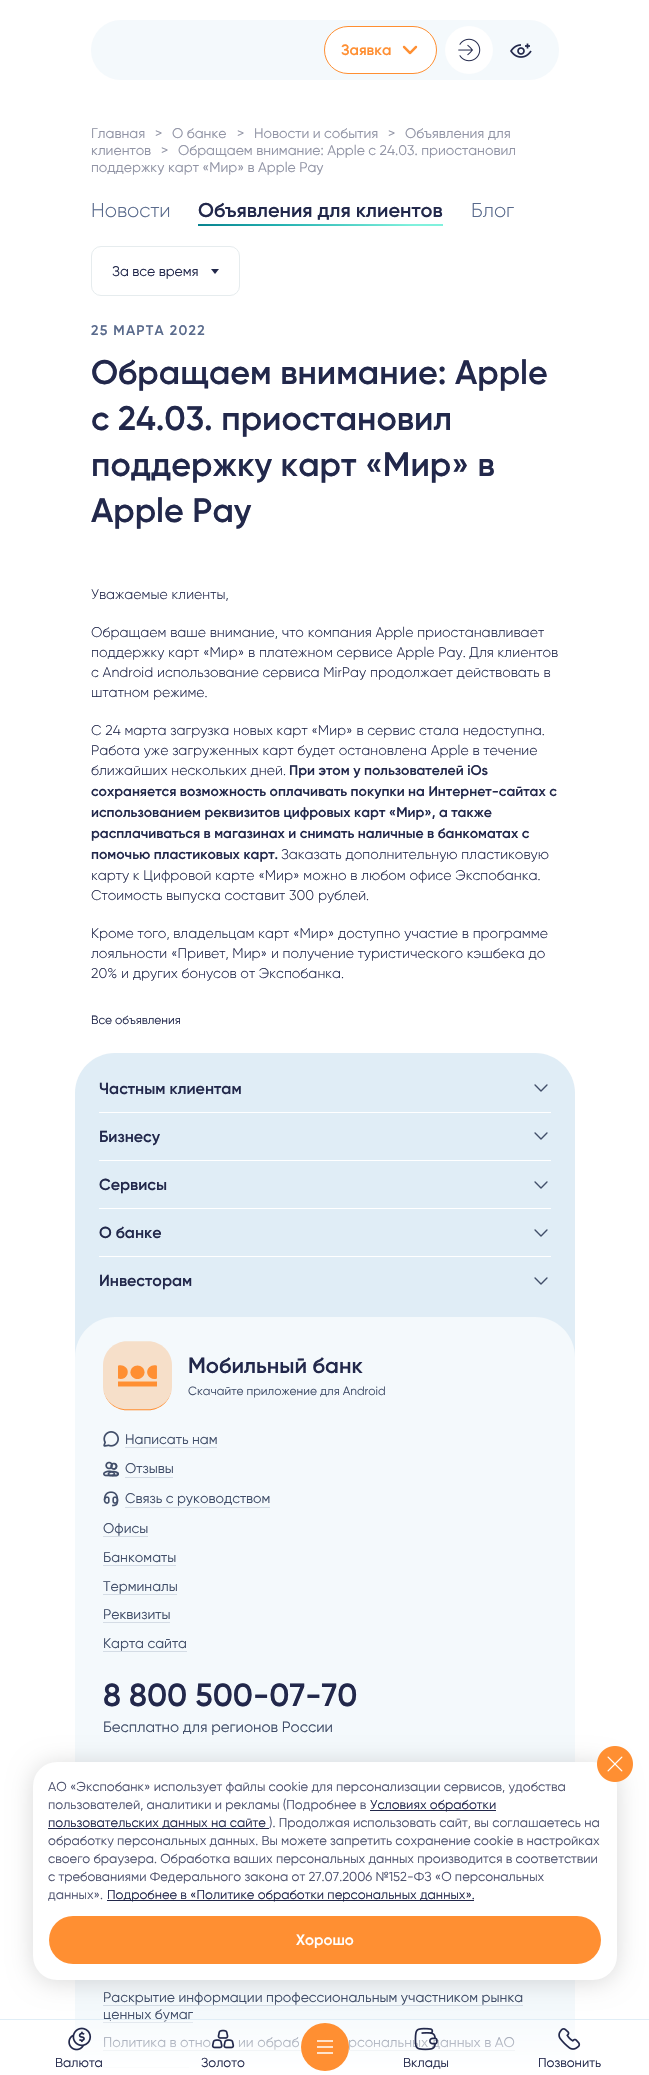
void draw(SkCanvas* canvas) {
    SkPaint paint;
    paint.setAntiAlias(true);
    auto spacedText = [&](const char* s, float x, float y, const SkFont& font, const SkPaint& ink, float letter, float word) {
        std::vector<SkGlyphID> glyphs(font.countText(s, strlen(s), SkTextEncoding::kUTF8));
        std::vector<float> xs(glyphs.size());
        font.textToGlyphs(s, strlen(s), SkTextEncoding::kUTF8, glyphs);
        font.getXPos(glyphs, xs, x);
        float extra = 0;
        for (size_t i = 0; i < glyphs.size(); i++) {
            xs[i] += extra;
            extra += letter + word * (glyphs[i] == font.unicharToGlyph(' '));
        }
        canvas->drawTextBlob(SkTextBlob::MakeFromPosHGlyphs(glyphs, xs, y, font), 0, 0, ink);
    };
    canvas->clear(0xFFFFFFFF);
    paint.setColor(0xFFF4F9FC);
    canvas->drawRoundRect(SkRect::MakeXYWH(91, 20, 468, 60), 30, 30, paint);
    paint.setColor(0xFFFFFFFF);
    canvas->drawRoundRect(SkRect::MakeXYWH(324.5f, 26.5f, 112, 47), 23.5f, 23.5f, paint);
    paint.setStyle(SkPaint::kStroke_Style);
    paint.setStrokeWidth(1);
    paint.setColor(0xFFFF8F32);
    canvas->drawRoundRect(SkRect::MakeXYWH(324.5f, 26.5f, 112, 47), 23.5f, 23.5f, paint);
    SkFont font1(fontMgr->matchFamilyStyle("Gilroy", SkFontStyle(600, SkFontStyle::kNormal_Width, SkFontStyle::kUpright_Slant)), 15);
    font1.setSubpixel(true);
    paint.setStyle(SkPaint::kFill_Style);
    canvas->drawString("Заявка", 341, 55, font1, paint);
    canvas->drawImageRect(SkImages::DeferredFromEncodedData(SkData::MakeFromFileName("img1.png")), SkRect::MakeXYWH(402, 45, 16, 10), SkSamplingOptions());
    paint.setColor(0xFFFFFFFF);
    canvas->drawCircle(469, 50, 24, paint);
    canvas->drawImageRect(SkImages::DeferredFromEncodedData(SkData::MakeFromFileName("img2.png")), SkRect::MakeXYWH(458, 38, 23, 24), SkSamplingOptions());
    canvas->drawImageRect(SkImages::DeferredFromEncodedData(SkData::MakeFromFileName("img3.png")), SkRect::MakeXYWH(510, 43, 22, 15), SkSamplingOptions());
    SkFont font2(fontMgr->matchFamilyStyle("Gilroy", SkFontStyle::Normal()), 14);
    font2.setSubpixel(true);
    paint.setColor(0xFF9194A5);
    canvas->drawString("Главная", 91, 138, font2, paint);
    canvas->drawString(">", 155, 138, font2, paint);
    canvas->drawString("О банке", 172, 138, font2, paint);
    canvas->drawString(">", 237, 138, font2, paint);
    canvas->drawString("Новости и события", 254, 138, font2, paint);
    canvas->drawString(">", 388, 138, font2, paint);
    canvas->drawString("Объявления для", 405, 138, font2, paint);
    canvas->drawString("клиентов", 91, 155, font2, paint);
    canvas->drawString(">", 161, 155, font2, paint);
    canvas->drawString("Обращаем внимание: Apple с 24.03. приостановил", 178, 155, font2, paint);
    canvas->drawString("поддержку карт «Мир» в Apple Pay", 91, 172, font2, paint);
    SkFont font3(fontMgr->matchFamilyStyle("Gilroy", SkFontStyle(300, SkFontStyle::kNormal_Width, SkFontStyle::kUpright_Slant)), 20);
    font3.setSubpixel(true);
    paint.setColor(0xFF596A8C);
    canvas->drawString("Новости", 91, 217, font3, paint);
    SkFont font4(fontMgr->matchFamilyStyle("Gilroy", SkFontStyle(600, SkFontStyle::kNormal_Width, SkFontStyle::kUpright_Slant)), 20);
    font4.setSubpixel(true);
    paint.setColor(0xFF22284B);
    canvas->drawString("Объявления для клиентов", 198, 217, font4, paint);
    {
        const SkColor colors[] = {0xFF067F8C, 0xFF23B0B0, 0xFF80F1DD};
        const float stops[] = {0, 0.34f, 0.88f};
        const SkPoint ends[] = {{318, 243}, {323, 208}};
        paint.setShader(SkGradientShader::MakeLinear(ends, colors, stops, 3, SkTileMode::kClamp));
        paint.setAlpha(255);
    }
    canvas->drawRect(SkRect::MakeXYWH(198, 224, 245, 2), paint);
    paint.setShader(nullptr);
    paint.setColor(0xFF596A8C);
    canvas->drawString("Блог", 471, 217, font3, paint);
    paint.setStyle(SkPaint::kStroke_Style);
    paint.setColor(0xFFE6ECEE);
    canvas->drawRoundRect(SkRect::MakeXYWH(91.5f, 246.5f, 148, 49), 9.5f, 9.5f, paint);
    paint.setStyle(SkPaint::kFill_Style);
    paint.setColor(0xFF22284B);
    canvas->drawString("За все время", 112, 276, font2, paint);
    canvas->drawPath(SkPathBuilder().moveTo(211, 269).lineTo(219, 269).lineTo(215, 274).close().detach(), paint);
    SkFont font5(fontMgr->matchFamilyStyle("Gilroy", SkFontStyle(600, SkFontStyle::kNormal_Width, SkFontStyle::kUpright_Slant)), 14);
    font5.setSubpixel(true);
    paint.setColor(0xFF596A8C);
    spacedText("25 МАРТА 2022", 91, 335, font5, paint, 1.25f, 0);
    SkFont font6(fontMgr->matchFamilyStyle("Gilroy", SkFontStyle(600, SkFontStyle::kNormal_Width, SkFontStyle::kUpright_Slant)), 34);
    font6.setSubpixel(true);
    paint.setColor(0xFF22284B);
    canvas->drawString("Обращаем внимание: Apple", 91, 384, font6, paint);
    canvas->drawString("с 24.03. приостановил", 91, 430, font6, paint);
    canvas->drawString("поддержку карт «Мир» в", 91, 476, font6, paint);
    canvas->drawString("Apple Pay", 91, 522, font6, paint);
    SkFont font7(fontMgr->matchFamilyStyle("Gilroy", SkFontStyle(300, SkFontStyle::kNormal_Width, SkFontStyle::kUpright_Slant)), 14);
    font7.setSubpixel(true);
    canvas->drawString("Уважаемые клиенты,", 91, 599, font7, paint);
    canvas->drawString("Обращаем ваше внимание, что компания Apple приостанавливает", 91, 637, font7, paint);
    canvas->drawString("поддержку карт «Мир» в платежном сервисе Apple Pay. Для клиентов", 91, 657, font7, paint);
    canvas->drawString("с Android использование сервиса MirPay продолжает действовать в", 91, 677, font7, paint);
    canvas->drawString("штатном режиме.", 91, 697, font7, paint);
    canvas->drawString("С 24 марта загрузка новых карт «Мир» в сервис стала недоступна.", 91, 735, font7, paint);
    canvas->drawString("Работа уже загруженных карт будет остановлена Apple в течение", 91, 755, font7, paint);
    canvas->drawString("ближайших нескольких дней.", 91, 775, font7, paint);
    canvas->drawString("При этом у пользователей iOs", 289, 775, font5, paint);
    canvas->drawString("сохраняется возможность оплачивать покупки на Интернет-сайтах с", 91, 796, font5, paint);
    canvas->drawString("использованием реквизитов цифровых карт «Мир», а также", 91, 817, font5, paint);
    canvas->drawString("расплачиваться в магазинах и снимать наличные в банкоматах с", 91, 838, font5, paint);
    canvas->drawString("помочью пластиковых карт.", 91, 859, font5, paint);
    canvas->drawString("Заказать дополнительную пластиковую", 281, 859, font7, paint);
    canvas->drawString("карту к Цифровой карте «Мир» можно в любом офисе Экспобанка.", 91, 880, font7, paint);
    canvas->drawString("Стоимость выпуска составит 300 рублей.", 91, 900, font7, paint);
    canvas->drawString("Кроме того, владельцам карт «Мир» доступно участие в программе", 91, 938, font7, paint);
    canvas->drawString("лояльности «Привет, Мир» и получение туристического кэшбека до", 91, 958, font7, paint);
    canvas->drawString("20% и других бонусов от Экспобанка.", 91, 978, font7, paint);
    SkFont font8(fontMgr->matchFamilyStyle("Gilroy", SkFontStyle::Normal()), 12);
    font8.setSubpixel(true);
    canvas->drawString("Все объявления", 91, 1024, font8, paint);
    paint.setColor(0xFFE0EDF6);
    canvas->drawPath(SkPathBuilder().moveTo(115, 1053).lineTo(535, 1053).cubicTo(557, 1053, 575, 1071, 575, 1093).lineTo(575, 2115).lineTo(75, 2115).lineTo(75, 1093).cubicTo(75, 1071, 93, 1053, 115, 1053).close().detach(), paint);
    SkFont font9(fontMgr->matchFamilyStyle("Gilroy", SkFontStyle(600, SkFontStyle::kNormal_Width, SkFontStyle::kUpright_Slant)), 16);
    font9.setSubpixel(true);
    paint.setColor(0xFF22284B);
    canvas->drawString("Частным клиентам", 99, 1094, font9, paint);
    canvas->drawImageRect(SkImages::DeferredFromEncodedData(SkData::MakeFromFileName("img4.png")), SkRect::MakeXYWH(534, 1084, 14, 8), SkSamplingOptions());
    paint.setColor(0xFFFFFFFF);
    canvas->drawRect(SkRect::MakeXYWH(99, 1112, 452, 1), paint);
    paint.setColor(0xFF22284B);
    canvas->drawString("Бизнесу", 99, 1142, font9, paint);
    canvas->drawImageRect(SkImages::DeferredFromEncodedData(SkData::MakeFromFileName("img4.png")), SkRect::MakeXYWH(534, 1132, 14, 8), SkSamplingOptions());
    paint.setColor(0xFFFFFFFF);
    canvas->drawRect(SkRect::MakeXYWH(99, 1160, 452, 1), paint);
    paint.setColor(0xFF22284B);
    canvas->drawString("Сервисы", 99, 1190, font9, paint);
    canvas->drawImageRect(SkImages::DeferredFromEncodedData(SkData::MakeFromFileName("img4.png")), SkRect::MakeXYWH(534, 1181, 14, 8), SkSamplingOptions());
    paint.setColor(0xFFFFFFFF);
    canvas->drawRect(SkRect::MakeXYWH(99, 1208, 452, 1), paint);
    paint.setColor(0xFF22284B);
    canvas->drawString("О банке", 99, 1238, font9, paint);
    canvas->drawImageRect(SkImages::DeferredFromEncodedData(SkData::MakeFromFileName("img4.png")), SkRect::MakeXYWH(534, 1229, 14, 8), SkSamplingOptions());
    paint.setColor(0xFFFFFFFF);
    canvas->drawRect(SkRect::MakeXYWH(99, 1256, 452, 1), paint);
    paint.setColor(0xFF22284B);
    canvas->drawString("Инвесторам", 99, 1286, font9, paint);
    canvas->drawImageRect(SkImages::DeferredFromEncodedData(SkData::MakeFromFileName("img4.png")), SkRect::MakeXYWH(534, 1277, 14, 8), SkSamplingOptions());
    paint.setColor(0xFFF4F9FC);
    canvas->drawPath(SkPathBuilder().moveTo(115, 1317).lineTo(535, 1317).cubicTo(557, 1317, 575, 1335, 575, 1357).lineTo(575, 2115).lineTo(75, 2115).lineTo(75, 1357).cubicTo(75, 1335, 93, 1317, 115, 1317).close().detach(), paint);
    canvas->drawImageRect(SkImages::DeferredFromEncodedData(SkData::MakeFromFileName("img5.png")), SkRect::MakeXYWH(103, 1341, 69, 70), SkSamplingOptions());
    SkFont font10(fontMgr->matchFamilyStyle("Gilroy", SkFontStyle(600, SkFontStyle::kNormal_Width, SkFontStyle::kUpright_Slant)), 22);
    font10.setSubpixel(true);
    paint.setColor(0xFF22284B);
    canvas->drawString("Мобильный банк", 188, 1373, font10, paint);
    paint.setColor(0xFF414E69);
    canvas->drawString("Скачайте приложение для Android", 188, 1395, font8, paint);
    canvas->drawImageRect(SkImages::DeferredFromEncodedData(SkData::MakeFromFileName("img6.png")), SkRect::MakeXYWH(103, 1431, 16, 16), SkSamplingOptions());
    paint.setColor(0xFFD4DCE5);
    canvas->drawRect(SkRect::MakeXYWH(125, 1447, 92, 1), paint);
    paint.setColor(0xFF414E69);
    canvas->drawString("Написать нам", 125, 1444, font2, paint);
    canvas->drawImageRect(SkImages::DeferredFromEncodedData(SkData::MakeFromFileName("img7.png")), SkRect::MakeXYWH(103, 1461, 16, 16), SkSamplingOptions());
    paint.setColor(0xFFD4DCE5);
    canvas->drawRect(SkRect::MakeXYWH(125, 1477, 48, 1), paint);
    paint.setColor(0xFF414E69);
    canvas->drawString("Отзывы", 125, 1473, font2, paint);
    canvas->drawImageRect(SkImages::DeferredFromEncodedData(SkData::MakeFromFileName("img8.png")), SkRect::MakeXYWH(103, 1491, 16, 16), SkSamplingOptions());
    paint.setColor(0xFFD4DCE5);
    canvas->drawRect(SkRect::MakeXYWH(125, 1507, 145, 1), paint);
    paint.setColor(0xFF414E69);
    canvas->drawString("Связь с руководством", 125, 1503, font2, paint);
    canvas->drawString("Офисы", 103, 1533, font2, paint);
    paint.setColor(0xFFD4DCE5);
    canvas->drawRect(SkRect::MakeXYWH(103, 1536, 45, 1), paint);
    paint.setColor(0xFF414E69);
    canvas->drawString("Банкоматы", 103, 1562, font2, paint);
    paint.setColor(0xFFD4DCE5);
    canvas->drawRect(SkRect::MakeXYWH(103, 1565, 73, 1), paint);
    paint.setColor(0xFF414E69);
    canvas->drawString("Терминалы", 103, 1591, font2, paint);
    paint.setColor(0xFFD4DCE5);
    canvas->drawRect(SkRect::MakeXYWH(103, 1594, 74, 1), paint);
    paint.setColor(0xFF414E69);
    canvas->drawString("Реквизиты", 103, 1619, font2, paint);
    paint.setColor(0xFFD4DCE5);
    canvas->drawRect(SkRect::MakeXYWH(103, 1622, 67, 1), paint);
    paint.setColor(0xFF414E69);
    canvas->drawString("Карта сайта", 103, 1648, font2, paint);
    paint.setColor(0xFFD4DCE5);
    canvas->drawRect(SkRect::MakeXYWH(103, 1651, 84, 1), paint);
    SkFont font11(fontMgr->matchFamilyStyle("Gilroy", SkFontStyle(600, SkFontStyle::kNormal_Width, SkFontStyle::kUpright_Slant)), 32);
    font11.setSubpixel(true);
    paint.setColor(0xFF22284B);
    canvas->drawString("8 800 500-07-70", 103, 1706, font11, paint);
    SkFont font12(fontMgr->matchFamilyStyle("Gilroy", SkFontStyle::Normal()), 15);
    font12.setSubpixel(true);
    paint.setColor(0xFF414E69);
    canvas->drawString("Бесплатно для регионов России", 103, 1732, font12, paint);
    canvas->drawString("Раскрытие информации профессиональным участником рынка", 103, 2002, font2, paint);
    paint.setColor(0xFFD4DCE5);
    canvas->drawRect(SkRect::MakeXYWH(103, 2005, 420, 1), paint);
    paint.setColor(0xFF414E69);
    canvas->drawString("ценных бумаг", 103, 2019, font2, paint);
    paint.setColor(0xFFD4DCE5);
    canvas->drawRect(SkRect::MakeXYWH(103, 2022, 90, 1), paint);
    paint.setColor(0xFF414E69);
    canvas->drawString("Политика в отно", 103, 2047, font2, paint);
    paint.setColor(0xFFD4DCE5);
    canvas->drawRect(SkRect::MakeXYWH(103, 2067, 86, 1), paint);
    paint.setColor(0xFF414E69);
    canvas->drawString("ии обраб", 238, 2047, font2, paint);
    canvas->drawString("рсональных данных в АО", 348, 2047, font2, paint);
    paint.setColor(0xFFD4DCE5);
    canvas->drawRect(SkRect::MakeXYWH(103, 2050, 412, 1), paint);
    paint.setColor(0x26000000);
    paint.setMaskFilter(SkMaskFilter::MakeBlur(kNormal_SkBlurStyle, 12));
    canvas->drawRoundRect(SkRect::MakeXYWH(33, 1764, 584, 218), 24, 24, paint);
    paint.setMaskFilter(nullptr);
    paint.setColor(0xFFFFFFFF);
    canvas->drawRoundRect(SkRect::MakeXYWH(33, 1762, 584, 218), 24, 24, paint);
    canvas->drawImageRect(SkImages::DeferredFromEncodedData(SkData::MakeFromFileName("img9.png")), SkRect::MakeXYWH(597, 1746, 36, 36), SkSamplingOptions());
    SkFont font13(fontMgr->matchFamilyStyle("Gilroy", SkFontStyle::Normal()), 13);
    font13.setSubpixel(true);
    paint.setColor(0xFF4E536F);
    canvas->drawString("АО «Экспобанк» использует файлы cookie для персонализации сервисов, удобства", 48, 1791, font13, paint);
    canvas->drawString("пользователей, аналитики и рекламы (Подробнее в", 48, 1809, font13, paint);
    paint.setColor(0xFF22284B);
    canvas->drawRect(SkRect::MakeXYWH(370, 1810, 126, 1), paint);
    canvas->drawString("Условиях обработки", 370, 1809, font13, paint);
    canvas->drawRect(SkRect::MakeXYWH(48, 1828, 221, 1), paint);
    canvas->drawString("пользовательских данных на сайте", 48, 1827, font13, paint);
    paint.setColor(0xFF4E536F);
    canvas->drawString("). Продолжая использовать сайт, вы соглашаетесь на", 269, 1827, font13, paint);
    canvas->drawString("обработку персональных данных. Вы можете запретить сохранение cookie в настройках", 48, 1845, font13, paint);
    canvas->drawString("своего браузера. Обработка ваших персональных данных производится в соответствии", 48, 1863, font13, paint);
    canvas->drawString("с требованиями Федерального закона от 27.07.2006 №152-ФЗ «О персональных", 48, 1881, font13, paint);
    canvas->drawString("данных».", 48, 1899, font13, paint);
    paint.setColor(0xFF22284B);
    canvas->drawRect(SkRect::MakeXYWH(107, 1900, 367, 1), paint);
    canvas->drawString("Подробнее в «Политике обработки персональных данных».", 107, 1899, font13, paint);
    paint.setColor(0xFFFF8F32);
    canvas->drawRoundRect(SkRect::MakeXYWH(49, 1916, 552, 48), 24, 24, paint);
    paint.setColor(0xFFFFFFFF);
    canvas->drawString("Хорошо", 296, 1945, font1, paint);
    {
        const SkColor colors[] = {0x4DFFFFFF, 0xFFFFFFFF};
        const float stops[] = {0, 1};
        const SkPoint ends[] = {{325, 2019}, {325, 2075}};
        paint.setShader(SkGradientShader::MakeLinear(ends, colors, stops, 2, SkTileMode::kClamp));
        paint.setAlpha(255);
    }
    canvas->drawRect(SkRect::MakeXYWH(75, 2020, 500, 55), paint);
    paint.setShader(nullptr);
    paint.setColor(0xFFE0EDF6);
    canvas->drawRect(SkRect::MakeXYWH(0, 2019, 649, 1), paint);
    canvas->drawImageRect(SkImages::DeferredFromEncodedData(SkData::MakeFromFileName("img10.png")), SkRect::MakeXYWH(68, 2027, 24, 24), SkSamplingOptions());
    paint.setColor(0xFF22284B);
    canvas->drawString("Валюта", 55, 2067, font13, paint);
    canvas->drawImageRect(SkImages::DeferredFromEncodedData(SkData::MakeFromFileName("img11.png")), SkRect::MakeXYWH(211, 2029, 24, 20), SkSamplingOptions());
    canvas->drawString("Золото", 201, 2067, font13, paint);
    paint.setColor(0xFFFF8F32);
    canvas->drawCircle(325, 2047, 24, paint);
    paint.setStyle(SkPaint::kStroke_Style);
    paint.setStrokeWidth(1.5f);
    paint.setColor(0xFFFFFFFF);
    canvas->drawPath(SkPathBuilder().moveTo(317, 2041).lineTo(333, 2041).moveTo(317, 2047).lineTo(333, 2047).moveTo(317, 2053).lineTo(333, 2053).detach(), paint);
    canvas->drawImageRect(SkImages::DeferredFromEncodedData(SkData::MakeFromFileName("img12.png")), SkRect::MakeXYWH(414, 2027, 24, 24), SkSamplingOptions());
    paint.setStyle(SkPaint::kFill_Style);
    paint.setColor(0xFF22284B);
    canvas->drawString("Вклады", 403, 2067, font13, paint);
    canvas->drawImageRect(SkImages::DeferredFromEncodedData(SkData::MakeFromFileName("img13.png")), SkRect::MakeXYWH(558, 2028, 23, 22), SkSamplingOptions());
    canvas->drawString("Позвонить", 538, 2067, font13, paint);
}
